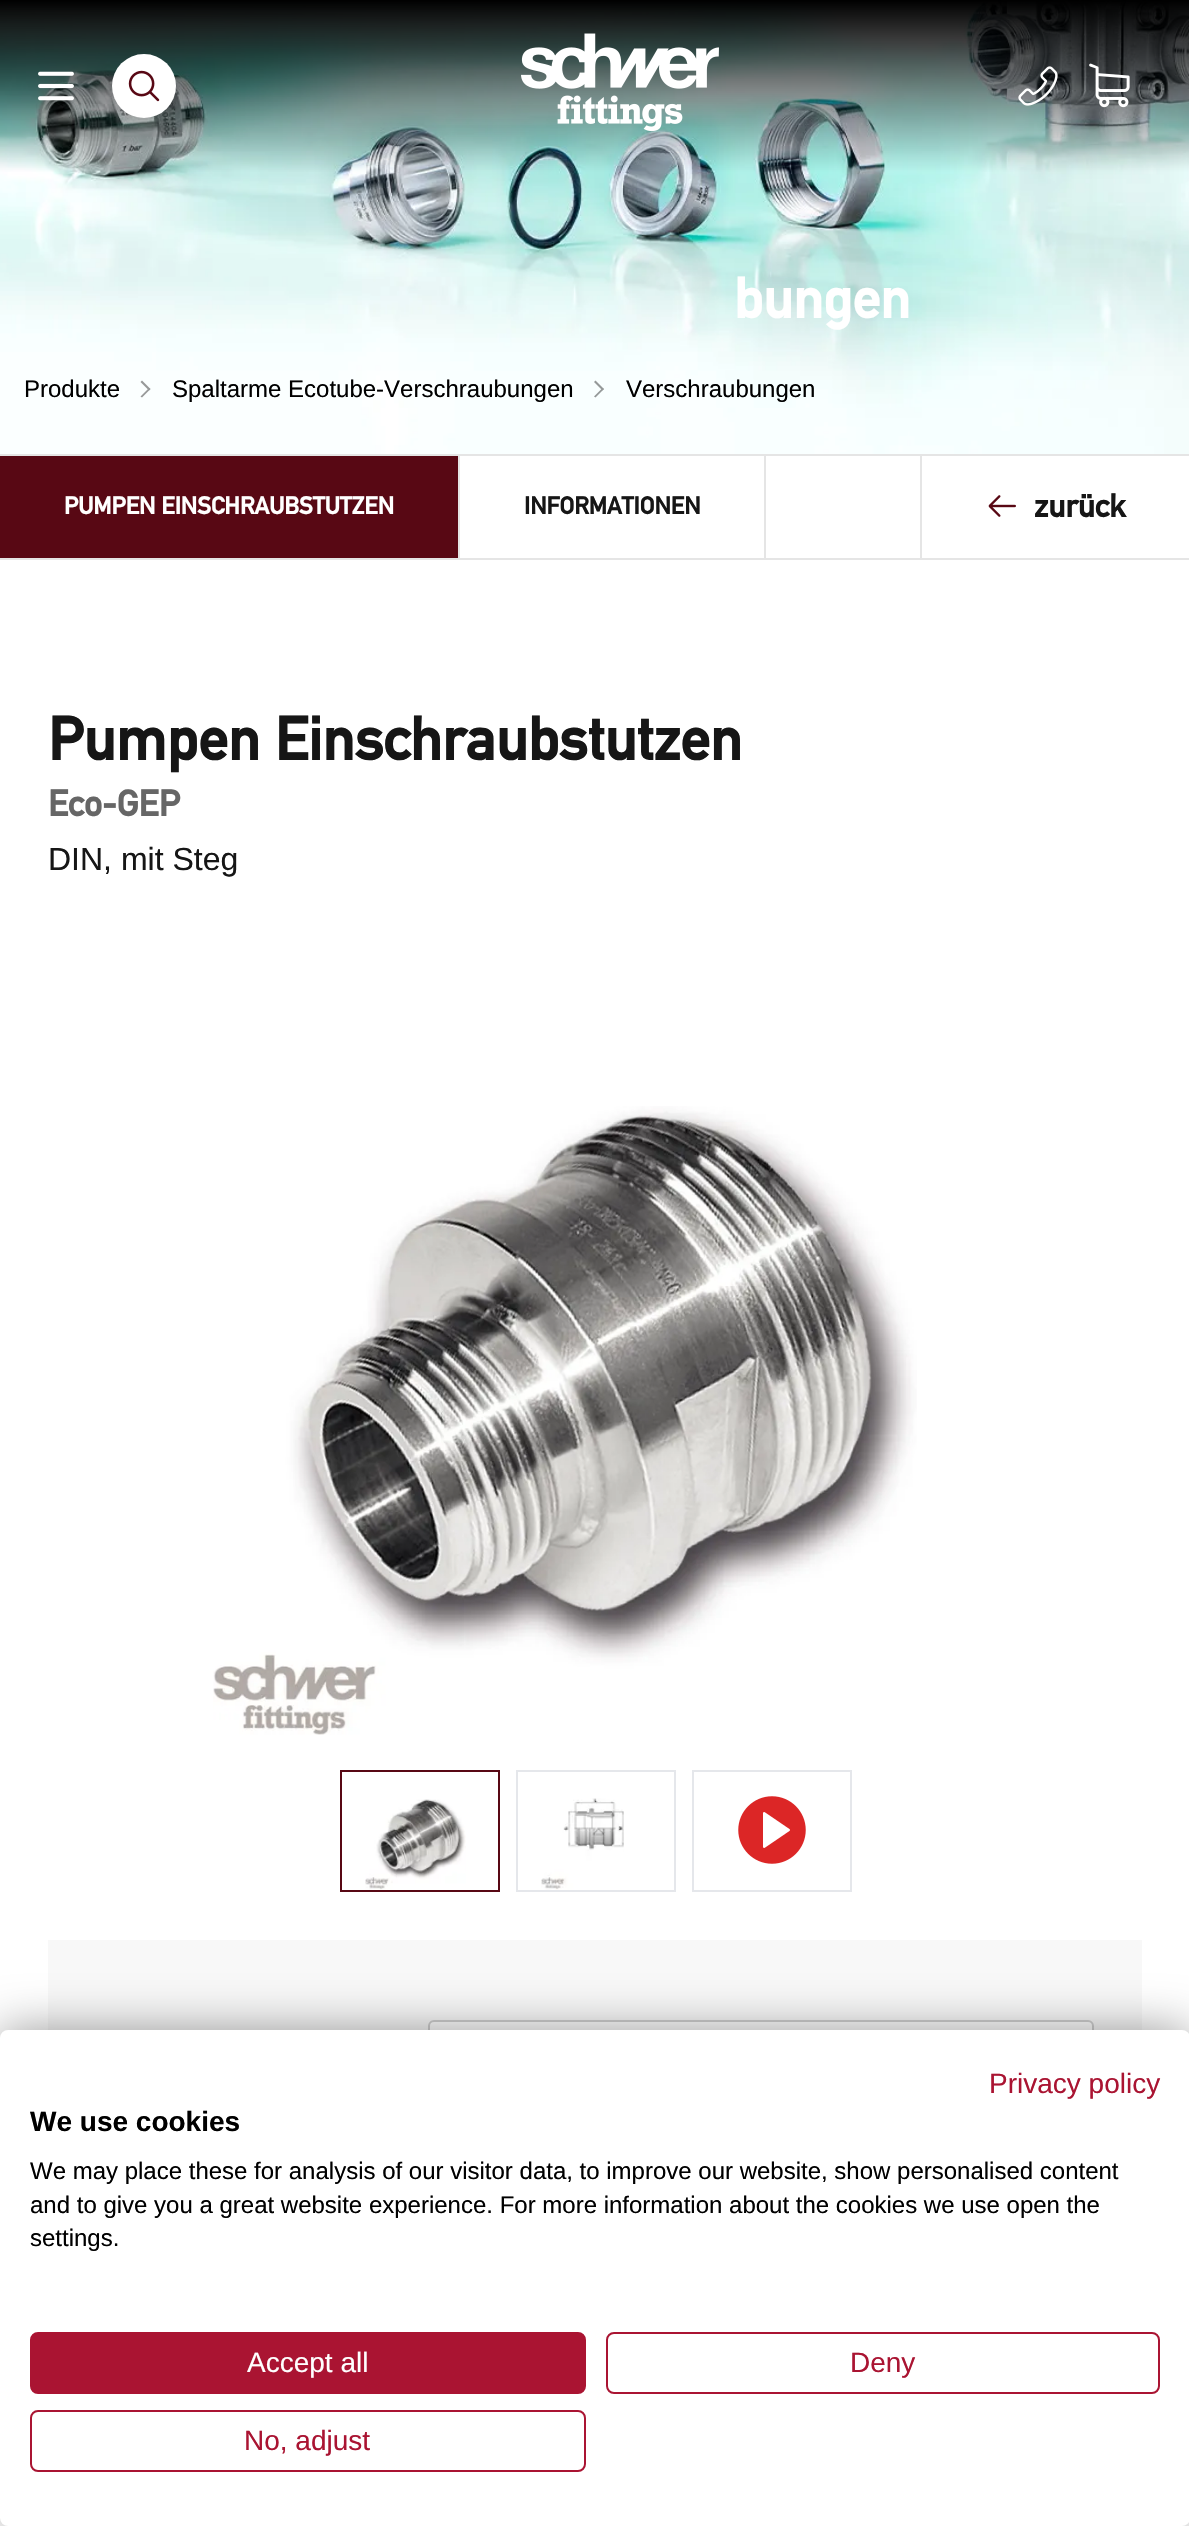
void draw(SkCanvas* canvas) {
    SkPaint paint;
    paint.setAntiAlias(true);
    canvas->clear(0xFFFFFFFF);
    canvas->drawImageRect(SkImages::DeferredFromEncodedData(SkData::MakeFromFileName("img6.png")), SkRect::MakeXYWH(0, 0, 1189, 454), SkSamplingOptions());
    canvas->drawImageRect(SkImages::DeferredFromEncodedData(SkData::MakeFromFileName("img1.png")), SkRect::MakeXYWH(38, 71, 36, 30), SkSamplingOptions());
    paint.setColor(0xFFFFFFFF);
    canvas->drawCircle(144, 86, 32, paint);
    canvas->drawImageRect(SkImages::DeferredFromEncodedData(SkData::MakeFromFileName("img2.png")), SkRect::MakeXYWH(128, 70, 32, 32), SkSamplingOptions());
    canvas->drawImageRect(SkImages::DeferredFromEncodedData(SkData::MakeFromFileName("img3.png")), SkRect::MakeXYWH(521, 33, 198, 99), SkSamplingOptions());
    canvas->drawImageRect(SkImages::DeferredFromEncodedData(SkData::MakeFromFileName("img4.png")), SkRect::MakeXYWH(1018, 66, 40, 40), SkSamplingOptions());
    canvas->drawImageRect(SkImages::DeferredFromEncodedData(SkData::MakeFromFileName("img5.png")), SkRect::MakeXYWH(1089, 63, 41, 45), SkSamplingOptions());
    SkFont font1(fontMgr->matchFamilyStyle("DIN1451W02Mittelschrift", SkFontStyle::Bold()), 56);
    font1.setSubpixel(true);
    canvas->drawString("bungen", 734, 318, font1, paint);
    SkFont font2(fontMgr->matchFamilyStyle("Liberation Sans", SkFontStyle::Normal()), 24);
    font2.setSubpixel(true);
    paint.setColor(0xFF000000);
    canvas->drawString("Produkte", 24, 397, font2, paint);
    paint.setColor(0xFF979999);
    canvas->drawPath(SkPathBuilder().moveTo(142, 380.5f).lineTo(150.5f, 389).lineTo(149, 390.5f).lineTo(140.5f, 382).close().detach(), paint);
    canvas->drawPath(SkPathBuilder().moveTo(149, 388).lineTo(150.5f, 389).lineTo(142, 397.5f).lineTo(140.5f, 396.5f).close().detach(), paint);
    paint.setColor(0xFF000000);
    canvas->drawString("Spaltarme Ecotube-Verschraubungen", 172, 397, font2, paint);
    paint.setColor(0xFF959999);
    canvas->drawPath(SkPathBuilder().moveTo(595.5f, 380.5f).lineTo(604, 389).lineTo(602.5f, 390.5f).lineTo(594, 382).close().detach(), paint);
    canvas->drawPath(SkPathBuilder().moveTo(602.5f, 388).lineTo(604, 389).lineTo(595.5f, 397.5f).lineTo(594, 396.5f).close().detach(), paint);
    paint.setColor(0xFF000000);
    canvas->drawString("Verschraubungen", 626, 397, font2, paint);
    paint.setColor(0xFFE5E5E5);
    canvas->drawRect(SkRect::MakeXYWH(0, 454, 1189, 2), paint);
    canvas->drawRect(SkRect::MakeXYWH(0, 558, 1189, 2), paint);
    paint.setColor(0xFF580814);
    canvas->drawRect(SkRect::MakeXYWH(0, 456, 458, 102), paint);
    paint.setColor(0xFFE5E5E5);
    canvas->drawRect(SkRect::MakeXYWH(458, 456, 2, 102), paint);
    SkFont font3(fontMgr->matchFamilyStyle("DIN1451W02Mittelschrift", SkFontStyle::Bold()), 24);
    font3.setSubpixel(true);
    paint.setColor(0xFFFFFFFF);
    canvas->drawString("PUMPEN EINSCHRAUBSTUTZEN", 64, 514, font3, paint);
    paint.setColor(0xFFE5E5E5);
    canvas->drawRect(SkRect::MakeXYWH(764, 456, 2, 102), paint);
    paint.setColor(0xFF161616);
    canvas->drawString("INFORMATIONEN", 524, 514, font3, paint);
    paint.setColor(0xFFE5E5E5);
    canvas->drawRect(SkRect::MakeXYWH(920, 456, 2, 102), paint);
    canvas->drawImageRect(SkImages::DeferredFromEncodedData(SkData::MakeFromFileName("img7.png")), SkRect::MakeXYWH(988, 495, 28, 22), SkSamplingOptions());
    SkFont font4(fontMgr->matchFamilyStyle("DIN1451W02Mittelschrift", SkFontStyle::Bold()), 32);
    font4.setSubpixel(true);
    paint.setColor(0xFF161616);
    canvas->drawString("zurück", 1034, 517, font4, paint);
    SkFont font5(fontMgr->matchFamilyStyle("DIN1451W02Mittelschrift", SkFontStyle::Bold()), 60);
    font5.setSubpixel(true);
    canvas->drawString("Pumpen Einschraubstutzen", 48, 760, font5, paint);
    SkFont font6(fontMgr->matchFamilyStyle("DIN1451W02Mittelschrift", SkFontStyle::Bold()), 36);
    font6.setSubpixel(true);
    paint.setColor(0xFF666666);
    canvas->drawString("Eco-GEP", 48, 816, font6, paint);
    SkFont font7(fontMgr->matchFamilyStyle("Liberation Sans", SkFontStyle::Normal()), 32);
    font7.setSubpixel(true);
    paint.setColor(0xFF161616);
    canvas->drawString("DIN, mit Steg", 48, 870, font7, paint);
    canvas->drawImageRect(SkImages::DeferredFromEncodedData(SkData::MakeFromFileName("img8.png")), SkRect::MakeXYWH(213, 1106, 704, 629), SkSamplingOptions());
    paint.setStyle(SkPaint::kStroke_Style);
    paint.setStrokeWidth(2);
    paint.setColor(0xFF580814);
    canvas->drawRect(SkRect::MakeXYWH(341, 1771, 158, 120), paint);
    canvas->drawImageRect(SkImages::DeferredFromEncodedData(SkData::MakeFromFileName("img9.png")), SkRect::MakeXYWH(365, 1799, 101, 91), SkSamplingOptions());
    paint.setColor(0xFFE5E7EB);
    canvas->drawRect(SkRect::MakeXYWH(517, 1771, 158, 120), paint);
    canvas->drawImageRect(SkImages::DeferredFromEncodedData(SkData::MakeFromFileName("img10.png")), SkRect::MakeXYWH(541, 1798, 83, 92), SkSamplingOptions());
    canvas->drawRect(SkRect::MakeXYWH(693, 1771, 158, 120), paint);
    canvas->drawImageRect(SkImages::DeferredFromEncodedData(SkData::MakeFromFileName("img11.png")), SkRect::MakeXYWH(738, 1796, 68, 68), SkSamplingOptions());
    paint.setStyle(SkPaint::kFill_Style);
    paint.setColor(0xFFF8F8F8);
    canvas->drawRect(SkRect::MakeXYWH(48, 1940, 1094, 90), paint);
    paint.setColor(0xFFFFFFFF);
    canvas->drawRoundRect(SkRect::MakeXYWH(429, 2021, 664, 78), 5, 5, paint);
    paint.setStyle(SkPaint::kStroke_Style);
    paint.setColor(0xFFD0D0D0);
    canvas->drawRoundRect(SkRect::MakeXYWH(429, 2021, 664, 78), 5, 5, paint);
    paint.setStyle(SkPaint::kFill_Style);
    paint.setColor(0x66000000);
    paint.setMaskFilter(SkMaskFilter::MakeBlur(kNormal_SkBlurStyle, 24));
    canvas->drawRoundRect(SkRect::MakeXYWH(0, 2030, 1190, 496), 8, 8, paint);
    paint.setMaskFilter(nullptr);
    paint.setColor(0xFFFFFFFF);
    canvas->drawRoundRect(SkRect::MakeXYWH(0, 2030, 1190, 496), 8, 8, paint);
    SkFont font8(fontMgr->matchFamilyStyle("Liberation Sans", SkFontStyle::Normal()), 28);
    font8.setSubpixel(true);
    paint.setColor(0xFFAA1432);
    canvas->drawString("Privacy policy", 989, 2093, font8, paint);
    SkFont font9(fontMgr->matchFamilyStyle("Liberation Sans", SkFontStyle::Bold()), 28);
    font9.setSubpixel(true);
    paint.setColor(0xFF000000);
    canvas->drawString("We use cookies", 30, 2131, font9, paint);
    canvas->drawString("We may place these for analysis of our visitor data, to improve our website, show personalised content", 30, 2179, font2, paint);
    canvas->drawString("and to give you a great website experience. For more information about the cookies we use open the", 30, 2213, font2, paint);
    canvas->drawString("settings.", 30, 2246, font2, paint);
    paint.setColor(0xFFAA1432);
    canvas->drawRoundRect(SkRect::MakeXYWH(31, 2333, 554, 60), 7, 7, paint);
    paint.setStyle(SkPaint::kStroke_Style);
    canvas->drawRoundRect(SkRect::MakeXYWH(31, 2333, 554, 60), 7, 7, paint);
    paint.setStyle(SkPaint::kFill_Style);
    paint.setColor(0xFFFFFFFF);
    canvas->drawString("Accept all", 247, 2372, font8, paint);
    paint.setStyle(SkPaint::kStroke_Style);
    paint.setColor(0xFFAA1432);
    canvas->drawRoundRect(SkRect::MakeXYWH(607, 2333, 552, 60), 7, 7, paint);
    paint.setStyle(SkPaint::kFill_Style);
    canvas->drawString("Deny", 850, 2372, font8, paint);
    paint.setStyle(SkPaint::kStroke_Style);
    canvas->drawRoundRect(SkRect::MakeXYWH(31, 2411, 554, 60), 7, 7, paint);
    paint.setStyle(SkPaint::kFill_Style);
    canvas->drawString("No, adjust", 244, 2450, font8, paint);
}
